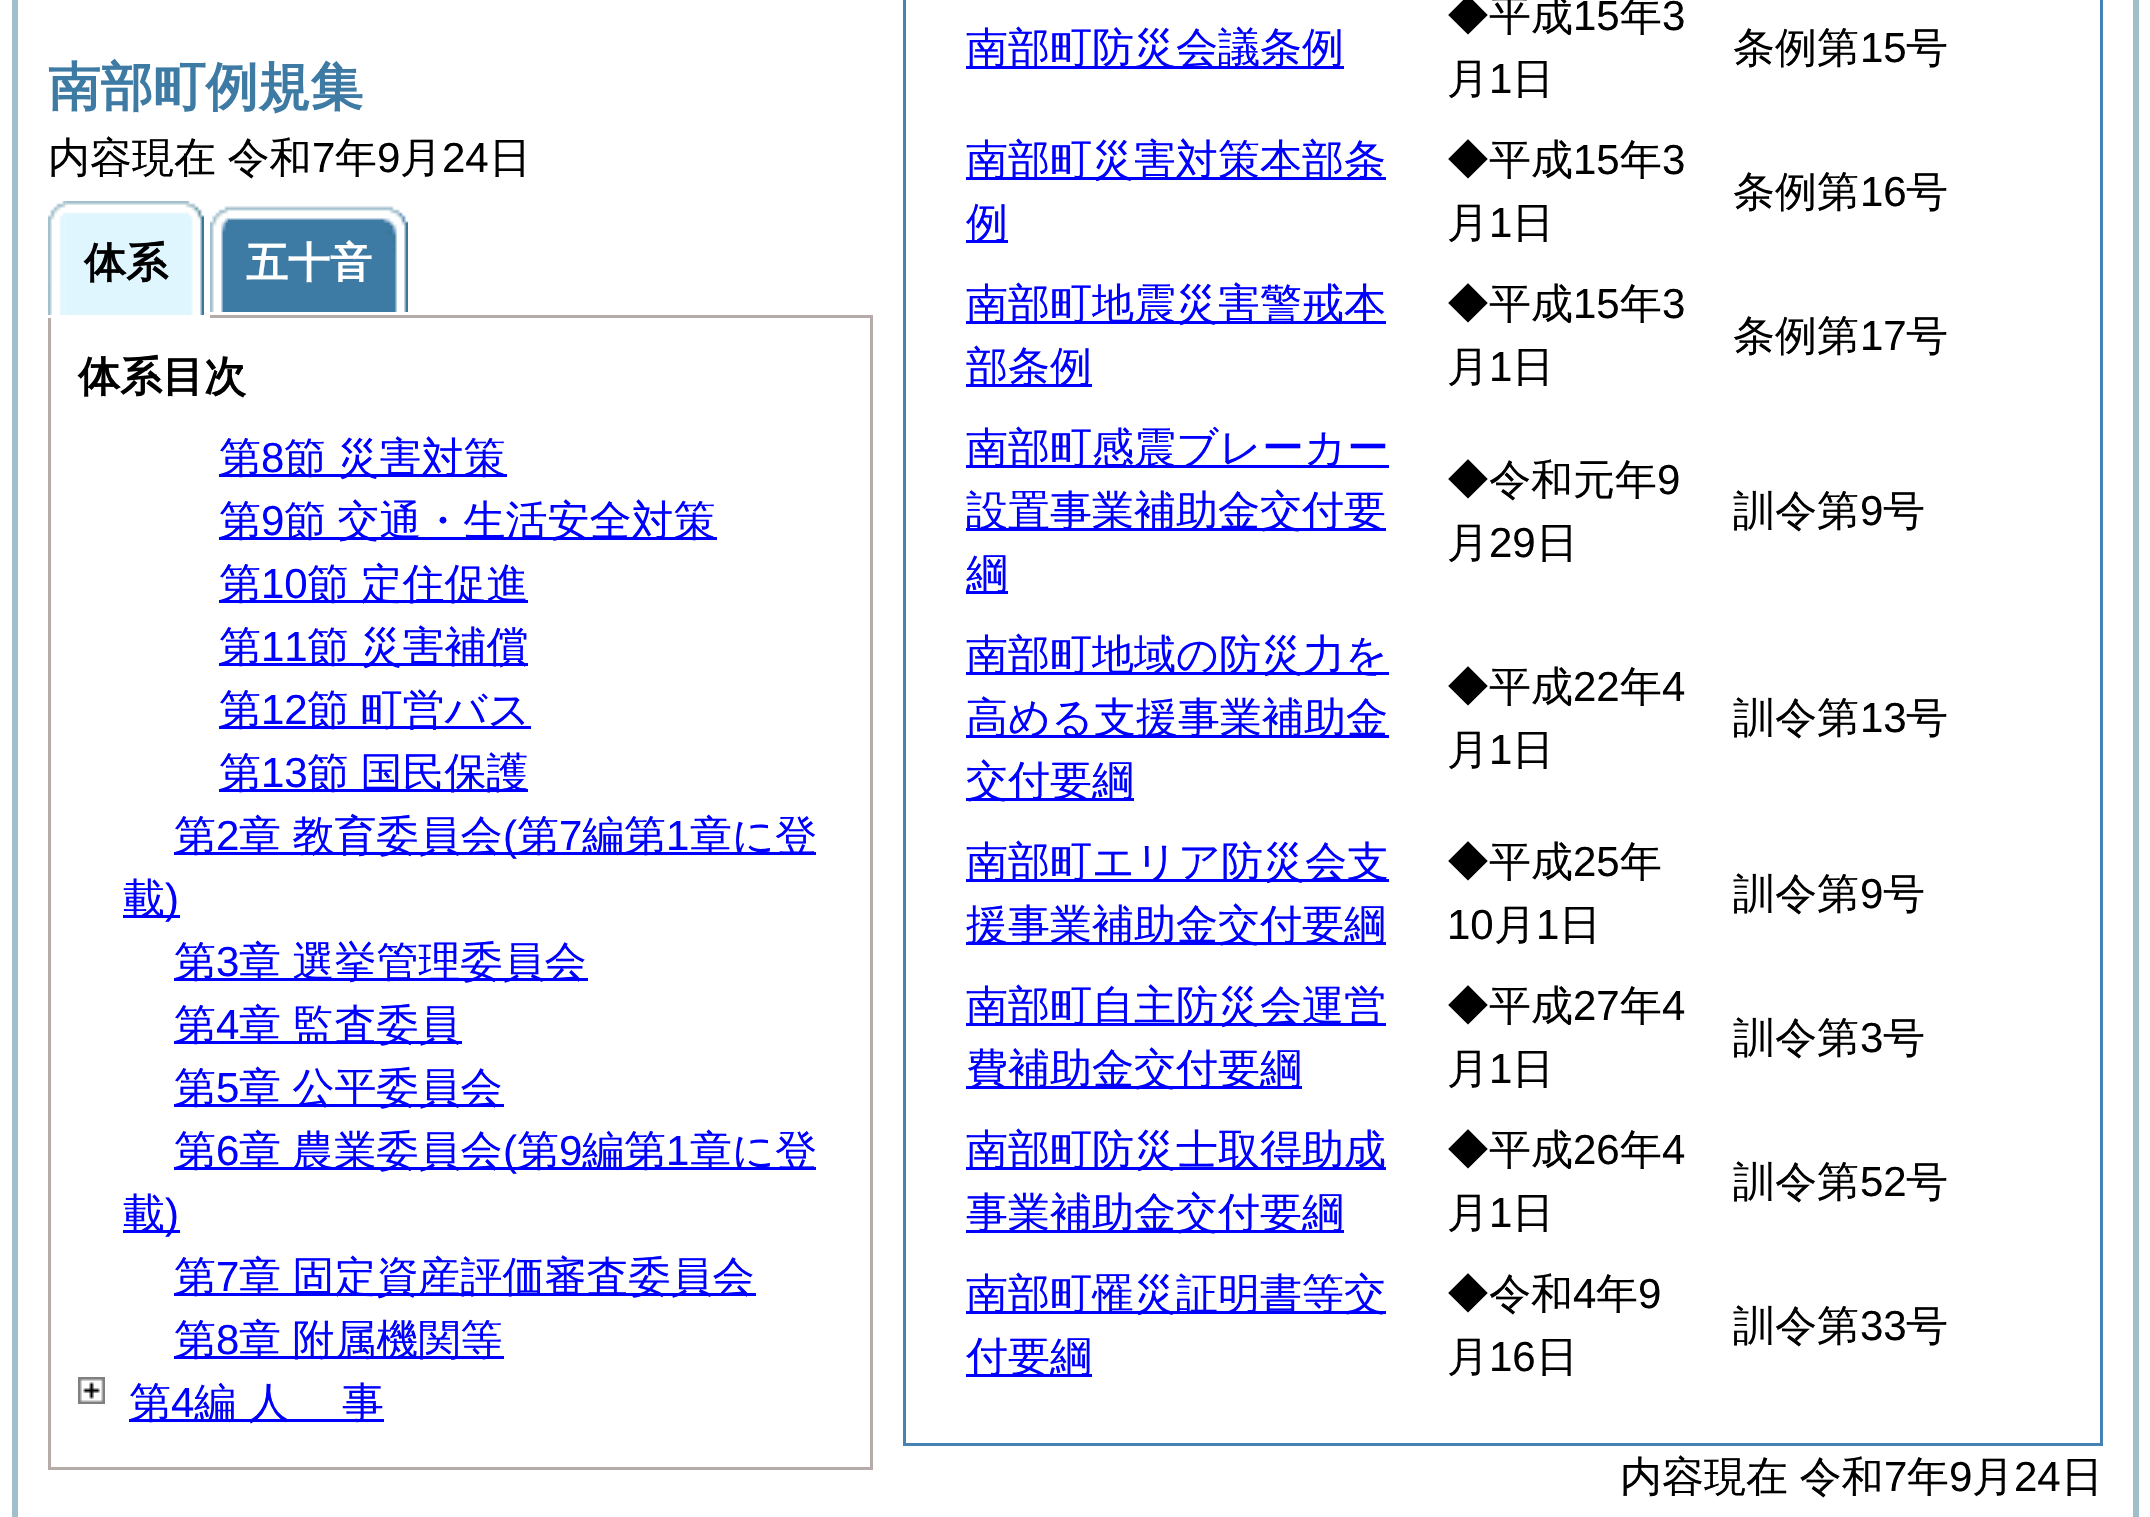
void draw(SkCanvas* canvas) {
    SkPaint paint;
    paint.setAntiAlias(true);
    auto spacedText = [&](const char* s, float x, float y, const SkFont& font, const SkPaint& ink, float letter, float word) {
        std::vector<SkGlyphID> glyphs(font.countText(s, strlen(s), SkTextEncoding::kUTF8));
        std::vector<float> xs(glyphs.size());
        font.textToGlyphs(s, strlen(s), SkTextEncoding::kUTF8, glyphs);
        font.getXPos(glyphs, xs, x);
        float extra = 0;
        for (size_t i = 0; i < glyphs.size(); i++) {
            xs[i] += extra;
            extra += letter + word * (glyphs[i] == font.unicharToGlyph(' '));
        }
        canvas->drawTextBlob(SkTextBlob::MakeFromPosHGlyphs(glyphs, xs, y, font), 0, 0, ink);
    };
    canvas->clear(0xFFFFFFFF);
    paint.setStyle(SkPaint::kStroke_Style);
    paint.setStrokeWidth(6);
    paint.setColor(0xFFA0BFCC);
    canvas->drawRect(SkRect::MakeXYWH(15, -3, 2121, 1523), paint);
    SkFont font1(fontMgr->matchFamilyStyle("WenQuanYi Zen Hei", SkFontStyle::Bold()), 52.5f);
    font1.setSubpixel(true);
    paint.setStyle(SkPaint::kFill_Style);
    paint.setColor(0xFF3D7AA4);
    canvas->drawString("南部町例規集", 48, 105, font1, paint);
    SkFont font2(fontMgr->matchFamilyStyle("WenQuanYi Zen Hei", SkFontStyle(500, SkFontStyle::kNormal_Width, SkFontStyle::kUpright_Slant)), 42);
    font2.setSubpixel(true);
    paint.setColor(0xFF000000);
    spacedText("内容現在 令和", 48, 172, font2, paint, 0, -1);
    SkFont font3(fontMgr->matchFamilyStyle("Liberation Sans", SkFontStyle::Normal()), 42);
    font3.setSubpixel(true);
    canvas->drawString("7", 312, 172, font3, paint);
    canvas->drawString("年", 335, 172, font2, paint);
    canvas->drawString("9", 377, 172, font3, paint);
    canvas->drawString("月", 400, 172, font2, paint);
    canvas->drawString("24", 442, 172, font3, paint);
    canvas->drawString("日", 489, 172, font2, paint);
    paint.setStyle(SkPaint::kStroke_Style);
    paint.setStrokeWidth(3);
    paint.setColor(0xFFB5ABA9);
    canvas->drawRect(SkRect::MakeXYWH(49.5f, 316.5f, 822, 1152), paint);
    paint.setStyle(SkPaint::kFill_Style);
    paint.setColor(0xFFFFFFFF);
    canvas->drawRect(SkRect::MakeXYWH(48, 315, 162, 3), paint);
    canvas->drawImageRect(SkImages::DeferredFromEncodedData(SkData::MakeFromFileName("img1.png")), SkRect::MakeXYWH(48, 201, 18, 114), SkSamplingOptions());
    canvas->drawImageRect(SkImages::DeferredFromEncodedData(SkData::MakeFromFileName("img2.png")), SkRect::MakeXYWH(66, 201, 138, 114), SkSamplingOptions());
    SkFont font4(fontMgr->matchFamilyStyle("WenQuanYi Zen Hei", SkFontStyle::Bold()), 42);
    font4.setSubpixel(true);
    paint.setColor(0xFF000000);
    canvas->drawString("体系", 84, 277, font4, paint);
    canvas->drawImageRect(SkImages::DeferredFromEncodedData(SkData::MakeFromFileName("img3.png")), SkRect::MakeXYWH(210, 201, 18, 111), SkSamplingOptions());
    canvas->drawImageRect(SkImages::DeferredFromEncodedData(SkData::MakeFromFileName("img4.png")), SkRect::MakeXYWH(228, 201, 180, 111), SkSamplingOptions());
    paint.setColor(0xFFFFFFFF);
    canvas->drawString("五十音", 246, 277, font4, paint);
    paint.setColor(0xFF000000);
    canvas->drawString("体系目次", 78, 391, font4, paint);
    paint.setColor(0xFF0000FF);
    canvas->drawRect(SkRect::MakeXYWH(219, 474, 288, 3), paint);
    canvas->drawString("第", 219, 472, font2, paint);
    canvas->drawString("8", 261, 472, font3, paint);
    spacedText("節 災害対策", 284, 472, font2, paint, 0, -1);
    canvas->drawRect(SkRect::MakeXYWH(219, 537, 498, 3), paint);
    canvas->drawString("第", 219, 535, font2, paint);
    canvas->drawString("9", 261, 535, font3, paint);
    spacedText("節 交通・生活安全対策", 284, 535, font2, paint, 0, -1);
    canvas->drawRect(SkRect::MakeXYWH(219, 600, 309, 3), paint);
    canvas->drawString("第", 219, 598, font2, paint);
    canvas->drawString("10", 261, 598, font3, paint);
    spacedText("節 定住促進", 307, 598, font2, paint, 0, -1);
    canvas->drawRect(SkRect::MakeXYWH(219, 663, 309, 3), paint);
    canvas->drawString("第", 219, 661, font2, paint);
    canvas->drawString("11", 261, 661, font3, paint);
    spacedText("節 災害補償", 307, 661, font2, paint, 0, -1);
    canvas->drawRect(SkRect::MakeXYWH(219, 726, 312, 3), paint);
    canvas->drawString("第", 219, 724, font2, paint);
    canvas->drawString("12", 261, 724, font3, paint);
    spacedText("節 町営バス", 307, 724, font2, paint, 0, -1);
    canvas->drawRect(SkRect::MakeXYWH(219, 789, 309, 3), paint);
    canvas->drawString("第", 219, 787, font2, paint);
    canvas->drawString("13", 261, 787, font3, paint);
    spacedText("節 国民保護", 307, 787, font2, paint, 0, -1);
    canvas->drawRect(SkRect::MakeXYWH(174, 852, 642, 3), paint);
    canvas->drawString("第", 174, 850, font2, paint);
    canvas->drawString("2", 216, 850, font3, paint);
    spacedText("章 教育委員会", 239, 850, font2, paint, 0, -1);
    canvas->drawString("(", 503, 850, font3, paint);
    canvas->drawString("第", 517, 850, font2, paint);
    canvas->drawString("7", 559, 850, font3, paint);
    canvas->drawString("編第", 582, 850, font2, paint);
    canvas->drawString("1", 666, 850, font3, paint);
    canvas->drawString("章に登", 690, 850, font2, paint);
    canvas->drawRect(SkRect::MakeXYWH(123, 915, 57, 3), paint);
    canvas->drawString("載", 123, 913, font2, paint);
    canvas->drawString(")", 165, 913, font3, paint);
    canvas->drawRect(SkRect::MakeXYWH(174, 978, 414, 3), paint);
    canvas->drawString("第", 174, 976, font2, paint);
    canvas->drawString("3", 216, 976, font3, paint);
    spacedText("章 選挙管理委員会", 239, 976, font2, paint, 0, -1);
    canvas->drawRect(SkRect::MakeXYWH(174, 1041, 288, 3), paint);
    canvas->drawString("第", 174, 1039, font2, paint);
    canvas->drawString("4", 216, 1039, font3, paint);
    spacedText("章 監査委員", 239, 1039, font2, paint, 0, -1);
    canvas->drawRect(SkRect::MakeXYWH(174, 1104, 330, 3), paint);
    canvas->drawString("第", 174, 1102, font2, paint);
    canvas->drawString("5", 216, 1102, font3, paint);
    spacedText("章 公平委員会", 239, 1102, font2, paint, 0, -1);
    canvas->drawRect(SkRect::MakeXYWH(174, 1167, 642, 3), paint);
    canvas->drawString("第", 174, 1165, font2, paint);
    canvas->drawString("6", 216, 1165, font3, paint);
    spacedText("章 農業委員会", 239, 1165, font2, paint, 0, -1);
    canvas->drawString("(", 503, 1165, font3, paint);
    canvas->drawString("第", 517, 1165, font2, paint);
    canvas->drawString("9", 559, 1165, font3, paint);
    canvas->drawString("編第", 582, 1165, font2, paint);
    canvas->drawString("1", 666, 1165, font3, paint);
    canvas->drawString("章に登", 690, 1165, font2, paint);
    canvas->drawRect(SkRect::MakeXYWH(123, 1230, 57, 3), paint);
    canvas->drawString("載", 123, 1228, font2, paint);
    canvas->drawString(")", 165, 1228, font3, paint);
    canvas->drawRect(SkRect::MakeXYWH(174, 1293, 582, 3), paint);
    canvas->drawString("第", 174, 1291, font2, paint);
    canvas->drawString("7", 216, 1291, font3, paint);
    spacedText("章 固定資産評価審査委員会", 239, 1291, font2, paint, 0, -1);
    canvas->drawRect(SkRect::MakeXYWH(174, 1356, 330, 3), paint);
    canvas->drawString("第", 174, 1354, font2, paint);
    canvas->drawString("8", 216, 1354, font3, paint);
    spacedText("章 附属機関等", 239, 1354, font2, paint, 0, -1);
    canvas->drawImageRect(SkImages::DeferredFromEncodedData(SkData::MakeFromFileName("img5.png")), SkRect::MakeXYWH(78, 1377, 27, 27), SkSamplingOptions());
    canvas->drawRect(SkRect::MakeXYWH(129, 1419, 255, 3), paint);
    canvas->drawString("第", 129, 1417, font2, paint);
    canvas->drawString("4", 171, 1417, font3, paint);
    canvas->drawString("編", 194, 1417, font2, paint);
    spacedText("人", 248, 1417, font2, paint, 53, 0);
    canvas->drawString("事", 342, 1417, font2, paint);
    paint.setStyle(SkPaint::kStroke_Style);
    paint.setColor(0xFF4682B4);
    canvas->drawRect(SkRect::MakeXYWH(904.5f, -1.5f, 1197, 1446), paint);
    paint.setStyle(SkPaint::kFill_Style);
    paint.setColor(0xFF0000FF);
    canvas->drawRect(SkRect::MakeXYWH(966, 66, 378, 3), paint);
    canvas->drawString("南部町防災会議条例", 966, 62, font2, paint);
    paint.setColor(0xFF000000);
    canvas->drawString("◆平成", 1447, 30, font2, paint);
    canvas->drawString("15", 1573, 30, font3, paint);
    canvas->drawString("年", 1620, 30, font2, paint);
    canvas->drawString("3", 1662, 30, font3, paint);
    canvas->drawString("月", 1447, 93, font2, paint);
    canvas->drawString("1", 1489, 93, font3, paint);
    canvas->drawString("日", 1512, 93, font2, paint);
    canvas->drawString("条例第", 1733, 62, font2, paint);
    canvas->drawString("15", 1860, 62, font3, paint);
    canvas->drawString("号", 1906, 62, font2, paint);
    paint.setColor(0xFF0000FF);
    canvas->drawRect(SkRect::MakeXYWH(966, 177, 420, 3), paint);
    canvas->drawString("南部町災害対策本部条", 966, 174, font2, paint);
    canvas->drawRect(SkRect::MakeXYWH(966, 240, 42, 3), paint);
    canvas->drawString("例", 966, 237, font2, paint);
    paint.setColor(0xFF000000);
    canvas->drawString("◆平成", 1447, 174, font2, paint);
    canvas->drawString("15", 1573, 174, font3, paint);
    canvas->drawString("年", 1620, 174, font2, paint);
    canvas->drawString("3", 1662, 174, font3, paint);
    canvas->drawString("月", 1447, 237, font2, paint);
    canvas->drawString("1", 1489, 237, font3, paint);
    canvas->drawString("日", 1512, 237, font2, paint);
    canvas->drawString("条例第", 1733, 206, font2, paint);
    canvas->drawString("16", 1860, 206, font3, paint);
    canvas->drawString("号", 1906, 206, font2, paint);
    paint.setColor(0xFF0000FF);
    canvas->drawRect(SkRect::MakeXYWH(966, 321, 420, 3), paint);
    canvas->drawString("南部町地震災害警戒本", 966, 318, font2, paint);
    canvas->drawRect(SkRect::MakeXYWH(966, 384, 126, 3), paint);
    canvas->drawString("部条例", 966, 381, font2, paint);
    paint.setColor(0xFF000000);
    canvas->drawString("◆平成", 1447, 318, font2, paint);
    canvas->drawString("15", 1573, 318, font3, paint);
    canvas->drawString("年", 1620, 318, font2, paint);
    canvas->drawString("3", 1662, 318, font3, paint);
    canvas->drawString("月", 1447, 381, font2, paint);
    canvas->drawString("1", 1489, 381, font3, paint);
    canvas->drawString("日", 1512, 381, font2, paint);
    canvas->drawString("条例第", 1733, 350, font2, paint);
    canvas->drawString("17", 1860, 350, font3, paint);
    canvas->drawString("号", 1906, 350, font2, paint);
    paint.setColor(0xFF0000FF);
    canvas->drawRect(SkRect::MakeXYWH(966, 465, 423, 3), paint);
    canvas->drawString("南部町感震ブレーカー", 966, 462, font2, paint);
    canvas->drawRect(SkRect::MakeXYWH(966, 528, 420, 3), paint);
    canvas->drawString("設置事業補助金交付要", 966, 525, font2, paint);
    canvas->drawRect(SkRect::MakeXYWH(966, 591, 42, 3), paint);
    canvas->drawString("綱", 966, 588, font2, paint);
    paint.setColor(0xFF000000);
    canvas->drawString("◆令和元年", 1447, 494, font2, paint);
    canvas->drawString("9", 1657, 494, font3, paint);
    canvas->drawString("月", 1447, 557, font2, paint);
    canvas->drawString("29", 1489, 557, font3, paint);
    canvas->drawString("日", 1536, 557, font2, paint);
    canvas->drawString("訓令第", 1733, 525, font2, paint);
    canvas->drawString("9", 1860, 525, font3, paint);
    canvas->drawString("号", 1883, 525, font2, paint);
    paint.setColor(0xFF0000FF);
    canvas->drawRect(SkRect::MakeXYWH(966, 672, 423, 3), paint);
    canvas->drawString("南部町地域の防災力を", 966, 669, font2, paint);
    canvas->drawRect(SkRect::MakeXYWH(966, 735, 423, 3), paint);
    canvas->drawString("高める支援事業補助金", 966, 732, font2, paint);
    canvas->drawRect(SkRect::MakeXYWH(966, 798, 168, 3), paint);
    canvas->drawString("交付要綱", 966, 795, font2, paint);
    paint.setColor(0xFF000000);
    canvas->drawString("◆平成", 1447, 701, font2, paint);
    canvas->drawString("22", 1573, 701, font3, paint);
    canvas->drawString("年", 1620, 701, font2, paint);
    canvas->drawString("4", 1662, 701, font3, paint);
    canvas->drawString("月", 1447, 764, font2, paint);
    canvas->drawString("1", 1489, 764, font3, paint);
    canvas->drawString("日", 1512, 764, font2, paint);
    canvas->drawString("訓令第", 1733, 732, font2, paint);
    canvas->drawString("13", 1860, 732, font3, paint);
    canvas->drawString("号", 1906, 732, font2, paint);
    paint.setColor(0xFF0000FF);
    canvas->drawRect(SkRect::MakeXYWH(966, 879, 423, 3), paint);
    canvas->drawString("南部町エリア防災会支", 966, 876, font2, paint);
    canvas->drawRect(SkRect::MakeXYWH(966, 942, 420, 3), paint);
    canvas->drawString("援事業補助金交付要綱", 966, 939, font2, paint);
    paint.setColor(0xFF000000);
    canvas->drawString("◆平成", 1447, 876, font2, paint);
    canvas->drawString("25", 1573, 876, font3, paint);
    canvas->drawString("年", 1620, 876, font2, paint);
    canvas->drawString("10", 1447, 939, font3, paint);
    canvas->drawString("月", 1494, 939, font2, paint);
    canvas->drawString("1", 1536, 939, font3, paint);
    canvas->drawString("日", 1559, 939, font2, paint);
    canvas->drawString("訓令第", 1733, 908, font2, paint);
    canvas->drawString("9", 1860, 908, font3, paint);
    canvas->drawString("号", 1883, 908, font2, paint);
    paint.setColor(0xFF0000FF);
    canvas->drawRect(SkRect::MakeXYWH(966, 1023, 420, 3), paint);
    canvas->drawString("南部町自主防災会運営", 966, 1020, font2, paint);
    canvas->drawRect(SkRect::MakeXYWH(966, 1086, 336, 3), paint);
    canvas->drawString("費補助金交付要綱", 966, 1083, font2, paint);
    paint.setColor(0xFF000000);
    canvas->drawString("◆平成", 1447, 1020, font2, paint);
    canvas->drawString("27", 1573, 1020, font3, paint);
    canvas->drawString("年", 1620, 1020, font2, paint);
    canvas->drawString("4", 1662, 1020, font3, paint);
    canvas->drawString("月", 1447, 1083, font2, paint);
    canvas->drawString("1", 1489, 1083, font3, paint);
    canvas->drawString("日", 1512, 1083, font2, paint);
    canvas->drawString("訓令第", 1733, 1052, font2, paint);
    canvas->drawString("3", 1860, 1052, font3, paint);
    canvas->drawString("号", 1883, 1052, font2, paint);
    paint.setColor(0xFF0000FF);
    canvas->drawRect(SkRect::MakeXYWH(966, 1167, 420, 3), paint);
    canvas->drawString("南部町防災士取得助成", 966, 1164, font2, paint);
    canvas->drawRect(SkRect::MakeXYWH(966, 1230, 378, 3), paint);
    canvas->drawString("事業補助金交付要綱", 966, 1227, font2, paint);
    paint.setColor(0xFF000000);
    canvas->drawString("◆平成", 1447, 1164, font2, paint);
    canvas->drawString("26", 1573, 1164, font3, paint);
    canvas->drawString("年", 1620, 1164, font2, paint);
    canvas->drawString("4", 1662, 1164, font3, paint);
    canvas->drawString("月", 1447, 1227, font2, paint);
    canvas->drawString("1", 1489, 1227, font3, paint);
    canvas->drawString("日", 1512, 1227, font2, paint);
    canvas->drawString("訓令第", 1733, 1196, font2, paint);
    canvas->drawString("52", 1860, 1196, font3, paint);
    canvas->drawString("号", 1906, 1196, font2, paint);
    paint.setColor(0xFF0000FF);
    canvas->drawRect(SkRect::MakeXYWH(966, 1311, 420, 3), paint);
    canvas->drawString("南部町罹災証明書等交", 966, 1308, font2, paint);
    canvas->drawRect(SkRect::MakeXYWH(966, 1374, 126, 3), paint);
    canvas->drawString("付要綱", 966, 1371, font2, paint);
    paint.setColor(0xFF000000);
    canvas->drawString("◆令和", 1447, 1308, font2, paint);
    canvas->drawString("4", 1573, 1308, font3, paint);
    canvas->drawString("年", 1596, 1308, font2, paint);
    canvas->drawString("9", 1638, 1308, font3, paint);
    canvas->drawString("月", 1447, 1371, font2, paint);
    canvas->drawString("16", 1489, 1371, font3, paint);
    canvas->drawString("日", 1536, 1371, font2, paint);
    canvas->drawString("訓令第", 1733, 1340, font2, paint);
    canvas->drawString("33", 1860, 1340, font3, paint);
    canvas->drawString("号", 1906, 1340, font2, paint);
    spacedText("内容現在 令和", 1620, 1491, font2, paint, 0, -1);
    canvas->drawString("7", 1884, 1491, font3, paint);
    canvas->drawString("年", 1907, 1491, font2, paint);
    canvas->drawString("9", 1949, 1491, font3, paint);
    canvas->drawString("月", 1972, 1491, font2, paint);
    canvas->drawString("24", 2014, 1491, font3, paint);
    canvas->drawString("日", 2061, 1491, font2, paint);
}
